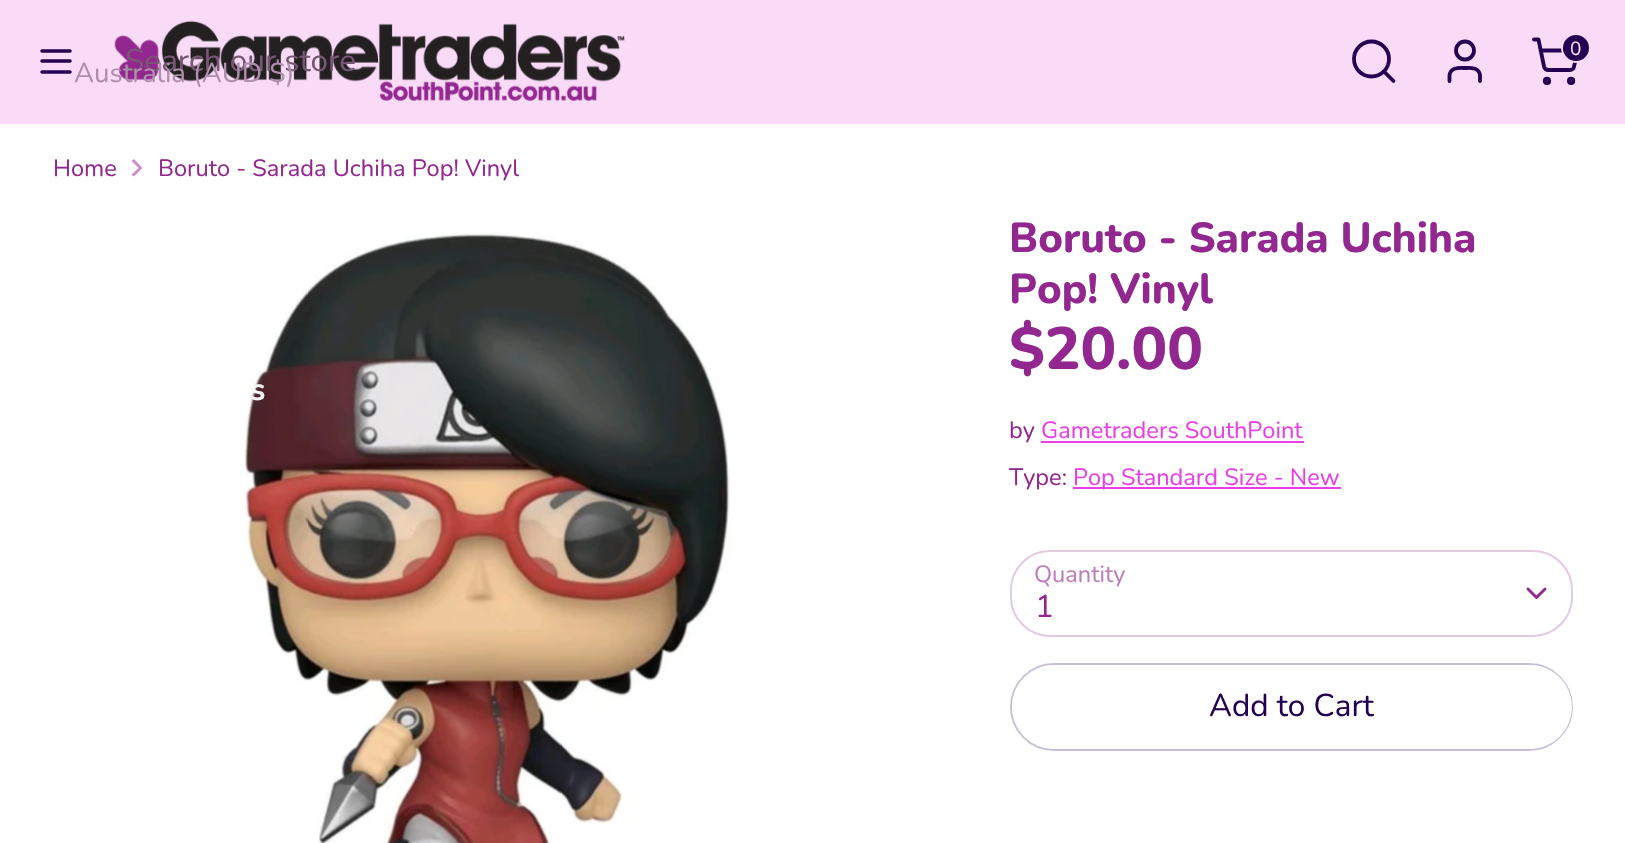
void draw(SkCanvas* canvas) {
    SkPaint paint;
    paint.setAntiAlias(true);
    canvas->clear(0xFFFFFFFF);
    paint.setColor(0xFFF9DBF8);
    canvas->drawRect(SkRect::MakeXYWH(0, 0, 1625, 124), paint);
    canvas->drawImageRect(SkImages::DeferredFromEncodedData(SkData::MakeFromFileName("img1.png")), SkRect::MakeXYWH(114, 21, 511, 81), SkSamplingOptions());
    paint.setStyle(SkPaint::kStroke_Style);
    paint.setStrokeWidth(3.5f);
    paint.setStrokeCap(SkPaint::kRound_Cap);
    paint.setStrokeJoin(SkPaint::kRound_Join);
    paint.setColor(0xFF230051);
    canvas->drawPath(SkPathBuilder().moveTo(42, 61).lineTo(70, 61).moveTo(42, 51).lineTo(70, 51).moveTo(42, 72).lineTo(70, 72).detach(), paint);
    SkFont font1(fontMgr->matchFamilyStyle("Nunito", SkFontStyle::Normal()), 31.5f);
    font1.setSubpixel(true);
    paint.setStyle(SkPaint::kFill_Style);
    paint.setColor(0xFF775874);
    canvas->drawString("Search our store", 125, 71, font1, paint);
    paint.setStyle(SkPaint::kStroke_Style);
    paint.setStrokeWidth(3.8f);
    paint.setStrokeCap(SkPaint::kButt_Cap);
    paint.setStrokeJoin(SkPaint::kMiter_Join);
    paint.setColor(0xFF230051);
    canvas->drawCircle(1371.5f, 59, 17.5f, paint);
    paint.setStrokeCap(SkPaint::kRound_Cap);
    paint.setStrokeJoin(SkPaint::kRound_Join);
    canvas->drawPath(SkPathBuilder().moveTo(1393.5f, 81).lineTo(1384, 71.5f).detach(), paint);
    canvas->drawPath(SkPathBuilder().moveTo(1480, 81).lineTo(1480, 75).cubicTo(1478.5f, 67, 1471, 68, 1465, 68).cubicTo(1458.5f, 68, 1451, 67, 1449.5f, 75).lineTo(1449.5f, 81).detach(), paint);
    paint.setStrokeCap(SkPaint::kButt_Cap);
    paint.setStrokeJoin(SkPaint::kMiter_Join);
    canvas->drawCircle(1465, 50.5f, 9, paint);
    canvas->drawCircle(1547, 80.9f, 2.2f, paint);
    canvas->drawCircle(1571.1f, 80.9f, 2.2f, paint);
    paint.setStrokeCap(SkPaint::kRound_Cap);
    paint.setStrokeJoin(SkPaint::kRound_Join);
    canvas->drawPath(SkPathBuilder().moveTo(1534, 39.5f).lineTo(1538.5f, 39.5f).lineTo(1544, 66.5f).cubicTo(1544.5f, 68.5f, 1546.5f, 70, 1548.5f, 70).lineTo(1570, 70).cubicTo(1572, 70, 1574, 68.5f, 1574, 66.5f).lineTo(1578, 50.5f).lineTo(1540.5f, 50.5f).detach(), paint);
    paint.setStyle(SkPaint::kFill_Style);
    canvas->drawCircle(1576, 48, 14, paint);
    paint.setStyle(SkPaint::kStroke_Style);
    paint.setStrokeWidth(2);
    paint.setStrokeCap(SkPaint::kButt_Cap);
    paint.setStrokeJoin(SkPaint::kMiter_Join);
    paint.setColor(0xFFF9DBF8);
    canvas->drawCircle(1576, 48, 14, paint);
    SkFont font2(fontMgr->matchFamilyStyle("Nunito", SkFontStyle::Normal()), 19);
    font2.setSubpixel(true);
    paint.setStyle(SkPaint::kFill_Style);
    canvas->drawString("0", 1570, 55, font2, paint);
    SkFont font3(fontMgr->matchFamilyStyle("Nunito", SkFontStyle::Normal()), 27.5f);
    font3.setSubpixel(true);
    paint.setColor(0xFFAF8FAD);
    canvas->drawString("Australia (AUD $)", 74, 82, font3, paint);
    canvas->drawImageRect(SkImages::DeferredFromEncodedData(SkData::MakeFromFileName("img2.png")), SkRect::MakeXYWH(245, 231, 485, 612), SkSamplingOptions());
    SkFont font4(fontMgr->matchFamilyStyle("Nunito", SkFontStyle::Bold()), 31.5f);
    font4.setSubpixel(true);
    paint.setColor(0xFFF6F4F4);
    canvas->drawString("s", 250, 400, font4, paint);
    SkFont font5(fontMgr->matchFamilyStyle("Nunito", SkFontStyle::Normal()), 23.6f);
    font5.setSubpixel(true);
    paint.setColor(0xFF92278F);
    canvas->drawString("Home", 53, 176, font5, paint);
    paint.setColor(0xFFC993C7);
    canvas->drawPath(SkPathBuilder().moveTo(131.5f, 174.5f).lineTo(138.5f, 168).lineTo(131.5f, 161).lineTo(134, 159).lineTo(142.5f, 168).lineTo(134, 176.5f).close().detach(), paint);
    paint.setColor(0xFF92278F);
    canvas->drawString("Boruto - Sarada Uchiha Pop! Vinyl", 158, 176, font5, paint);
    SkFont font6(fontMgr->matchFamilyStyle("Nunito", SkFontStyle(800, SkFontStyle::kNormal_Width, SkFontStyle::kUpright_Slant)), 42);
    font6.setSubpixel(true);
    canvas->drawString("Boruto - Sarada Uchiha", 1009, 252, font6, paint);
    canvas->drawString("Pop! Vinyl", 1009, 303, font6, paint);
    SkFont font7(fontMgr->matchFamilyStyle("Nunito", SkFontStyle(800, SkFontStyle::kNormal_Width, SkFontStyle::kUpright_Slant)), 59.5f);
    font7.setSubpixel(true);
    canvas->drawString("$20.00", 1009, 369, font7, paint);
    canvas->drawString("by", 1009, 438, font5, paint);
    paint.setColor(0xFFE93FE4);
    canvas->drawString("Gametraders SouthPoint", 1041, 438, font5, paint);
    canvas->drawRect(SkRect::MakeXYWH(1041, 441, 263, 2), paint);
    paint.setColor(0xFF92278F);
    canvas->drawString("Type:", 1009, 485, font5, paint);
    paint.setColor(0xFFE93FE4);
    canvas->drawRect(SkRect::MakeXYWH(1073, 487, 268, 2), paint);
    canvas->drawString("Pop Standard Size - New", 1073, 485, font5, paint);
    paint.setColor(0xFFBE7DBC);
    canvas->drawString("Quantity", 1034, 582, font5, paint);
    paint.setStyle(SkPaint::kStroke_Style);
    paint.setColor(0xFFE4C9E3);
    canvas->drawRoundRect(SkRect::MakeXYWH(1011, 551, 561, 85), 39, 39, paint);
    paint.setStyle(SkPaint::kFill_Style);
    paint.setColor(0xFF92278F);
    canvas->drawString("1", 1035, 617, font1, paint);
    paint.setStyle(SkPaint::kStroke_Style);
    paint.setStrokeWidth(2.9f);
    paint.setStrokeCap(SkPaint::kRound_Cap);
    paint.setStrokeJoin(SkPaint::kRound_Join);
    canvas->drawPath(SkPathBuilder().moveTo(1528, 589).lineTo(1536.5f, 597.5f).lineTo(1545, 589).detach(), paint);
    paint.setStrokeWidth(2);
    paint.setStrokeCap(SkPaint::kButt_Cap);
    paint.setStrokeJoin(SkPaint::kMiter_Join);
    paint.setColor(0xFFC8BFD4);
    canvas->drawRoundRect(SkRect::MakeXYWH(1011, 664, 561, 86), 43, 43, paint);
    paint.setStyle(SkPaint::kFill_Style);
    paint.setColor(0xFFFFFFFF);
    canvas->drawRoundRect(SkRect::MakeXYWH(1012, 665, 560, 84), 42, 42, paint);
    paint.setColor(0xFF230051);
    canvas->drawString("Add to Cart", 1209, 716, font1, paint);
}
